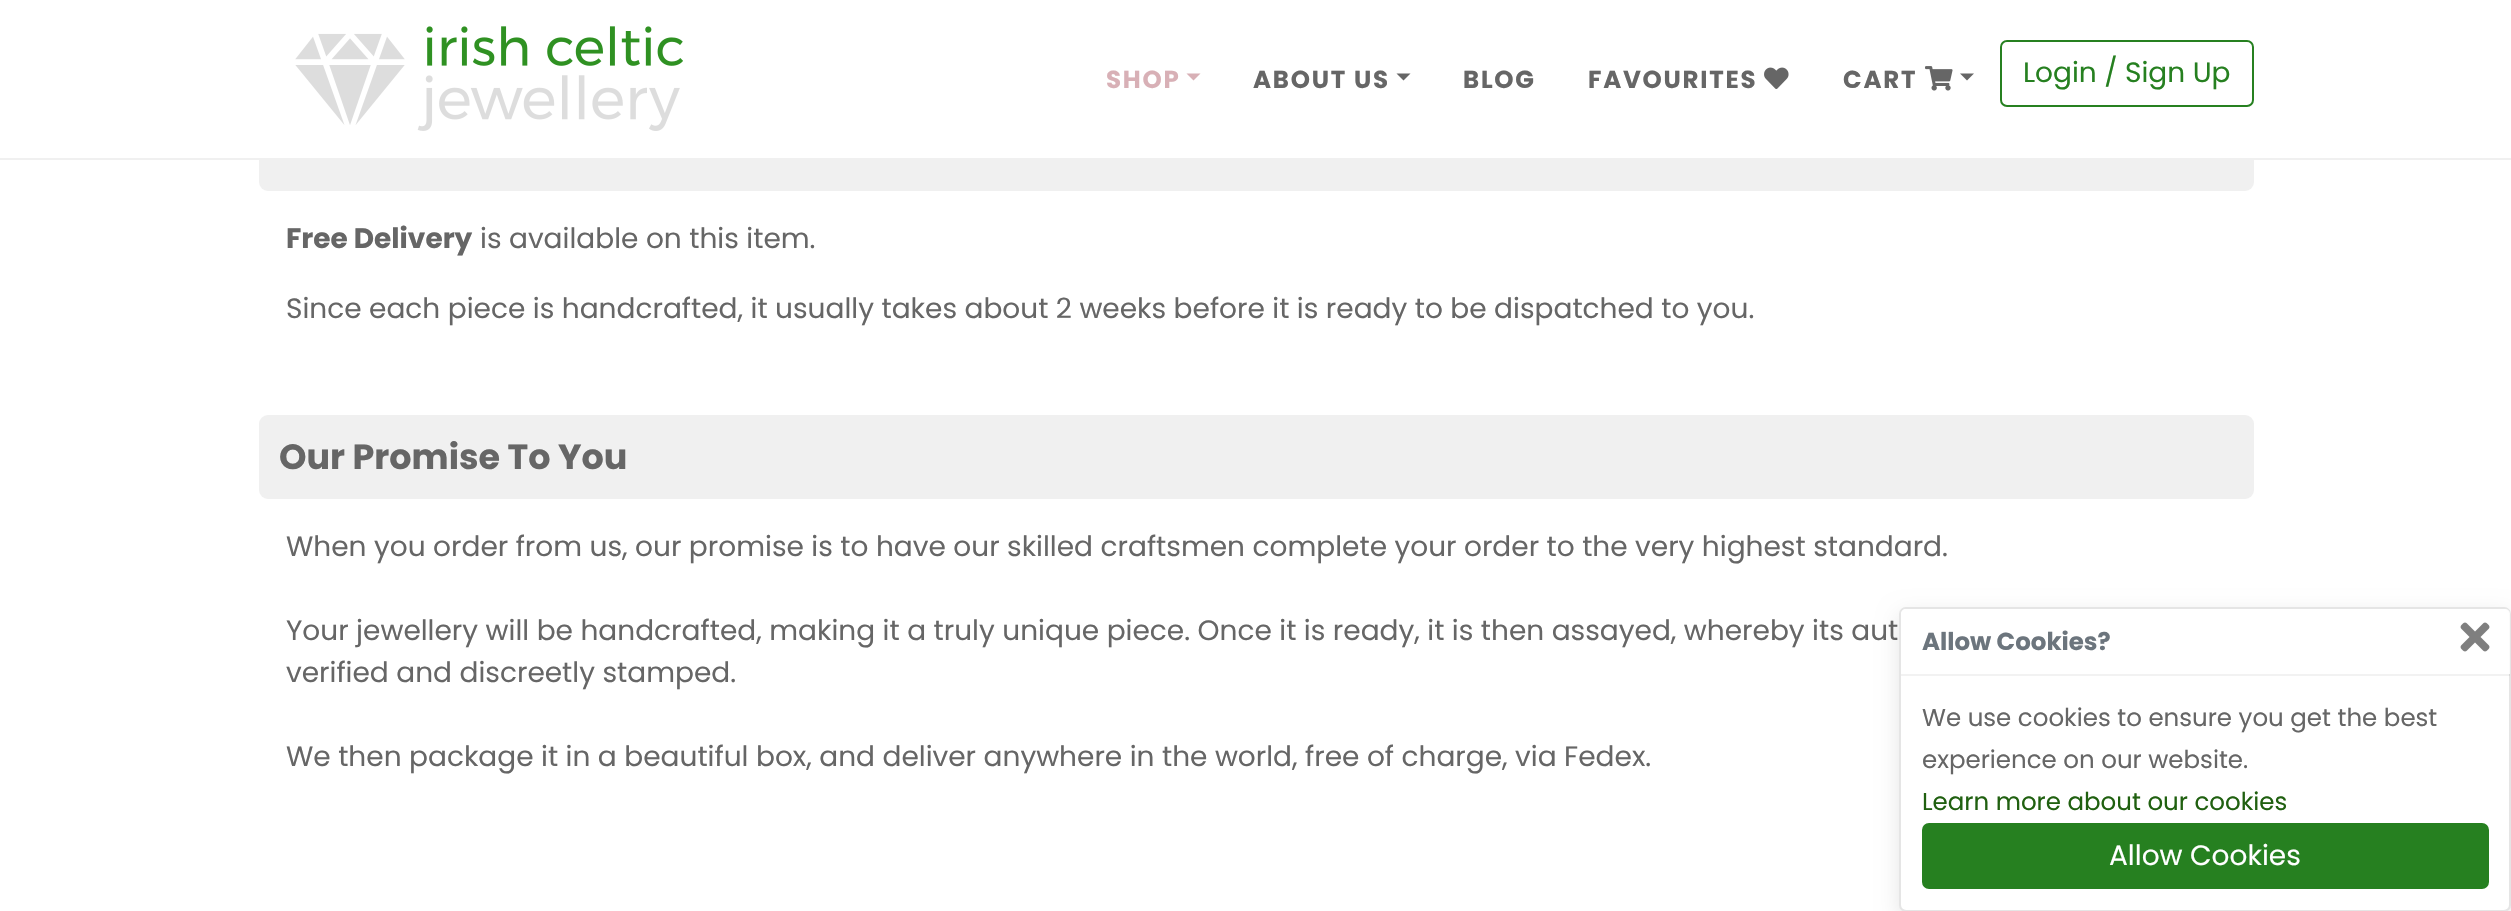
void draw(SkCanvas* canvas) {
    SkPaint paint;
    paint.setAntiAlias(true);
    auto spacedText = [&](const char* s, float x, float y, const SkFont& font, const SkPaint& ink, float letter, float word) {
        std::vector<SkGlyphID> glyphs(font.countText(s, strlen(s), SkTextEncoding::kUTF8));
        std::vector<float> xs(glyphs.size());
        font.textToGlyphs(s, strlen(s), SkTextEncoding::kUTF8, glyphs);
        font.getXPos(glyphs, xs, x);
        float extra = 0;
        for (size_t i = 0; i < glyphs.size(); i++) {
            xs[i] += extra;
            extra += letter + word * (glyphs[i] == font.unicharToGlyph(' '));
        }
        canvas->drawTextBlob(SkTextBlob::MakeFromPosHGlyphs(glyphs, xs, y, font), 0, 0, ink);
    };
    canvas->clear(0xFFFFFFFF);
    paint.setColor(0xFFF0F0F0);
    canvas->drawRoundRect(SkRect::MakeXYWH(259, 107, 1995, 84), 9, 9, paint);
    paint.setColor(0xFFFFFFFF);
    canvas->drawRect(SkRect::MakeXYWH(259, 107, 1995, 51), paint);
    paint.setColor(0xFFF0F0F0);
    canvas->drawRect(SkRect::MakeXYWH(0, 158, 2511, 2), paint);
    canvas->drawImageRect(SkImages::DeferredFromEncodedData(SkData::MakeFromFileName("img1.png")), SkRect::MakeXYWH(295, 26, 388, 105), SkSamplingOptions());
    SkFont font1(fontMgr->matchFamilyStyle("Poppins", SkFontStyle::Bold()), 24.5f);
    font1.setSubpixel(true);
    paint.setColor(0xFFD8B0B6);
    spacedText("SHOP", 1106, 88, font1, paint, 1.75f, 0);
    canvas->drawPath(SkPathBuilder().moveTo(1186.5f, 73.5f).lineTo(1200.5f, 73.5f).lineTo(1193.5f, 80.5f).close().detach(), paint);
    paint.setColor(0xFF666666);
    spacedText("ABOUT US", 1253, 88, font1, paint, 1.75f, 0);
    canvas->drawPath(SkPathBuilder().moveTo(1396.5f, 73.5f).lineTo(1410.5f, 73.5f).lineTo(1403.5f, 80.5f).close().detach(), paint);
    spacedText("BLOG", 1463, 88, font1, paint, 1.75f, 0);
    spacedText("FAVOURITES", 1588, 88, font1, paint, 1.75f, 0);
    canvas->drawImageRect(SkImages::DeferredFromEncodedData(SkData::MakeFromFileName("img2.png")), SkRect::MakeXYWH(1764, 67, 25, 22), SkSamplingOptions());
    spacedText("CART", 1843, 88, font1, paint, 1.75f, 0);
    canvas->drawImageRect(SkImages::DeferredFromEncodedData(SkData::MakeFromFileName("img3.png")), SkRect::MakeXYWH(1925, 66, 28, 25), SkSamplingOptions());
    canvas->drawPath(SkPathBuilder().moveTo(1960, 73.5f).lineTo(1974, 73.5f).lineTo(1967, 80.5f).close().detach(), paint);
    paint.setStyle(SkPaint::kStroke_Style);
    paint.setStrokeWidth(2);
    paint.setColor(0xFF268020);
    canvas->drawRoundRect(SkRect::MakeXYWH(2001, 41, 252, 65), 6, 6, paint);
    SkFont font2(fontMgr->matchFamilyStyle("Poppins", SkFontStyle::Normal()), 28);
    font2.setSubpixel(true);
    paint.setStyle(SkPaint::kFill_Style);
    canvas->drawString("Login / Sign Up", 2023, 82, font2, paint);
    SkFont font3(fontMgr->matchFamilyStyle("Poppins", SkFontStyle::Bold()), 28);
    font3.setSubpixel(true);
    paint.setColor(0xFF666666);
    canvas->drawString("Free Delivery", 286, 248, font3, paint);
    canvas->drawString("is available on this item.", 480, 248, font2, paint);
    canvas->drawString("Since each piece is handcrafted, it usually takes about 2 weeks before it is ready to be dispatched to you.", 286, 318, font2, paint);
    paint.setColor(0xFFF0F0F0);
    canvas->drawRoundRect(SkRect::MakeXYWH(259, 415, 1995, 84), 9, 9, paint);
    SkFont font4(fontMgr->matchFamilyStyle("Poppins", SkFontStyle::Bold()), 35);
    font4.setSubpixel(true);
    paint.setColor(0xFF666666);
    canvas->drawString("Our Promise To You", 279, 469, font4, paint);
    canvas->drawString("When you order from us, our promise is to have our skilled craftsmen complete your order to the very highest standard.", 286, 556, font2, paint);
    canvas->drawString("Your jewellery will be handcrafted, making it a truly unique piece. Once it is ready, it is then assayed, whereby its aut", 286, 640, font2, paint);
    canvas->drawString("verified and discreetly stamped.", 286, 682, font2, paint);
    canvas->drawString("We then package it in a beautiful box, and deliver anywhere in the world, free of charge, via Fedex.", 286, 766, font2, paint);
    canvas->save();
    canvas->clipPath(SkPathBuilder(SkPathFillType::kEvenOdd).moveTo(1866, 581).lineTo(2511, 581).lineTo(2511, 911).lineTo(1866, 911).close().moveTo(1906, 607).lineTo(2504, 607).cubicTo(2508, 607, 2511, 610, 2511, 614).lineTo(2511, 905).cubicTo(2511, 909, 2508, 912, 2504, 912).lineTo(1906, 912).cubicTo(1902, 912, 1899, 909, 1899, 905).lineTo(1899, 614).cubicTo(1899, 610, 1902, 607, 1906, 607).close().detach(), true);
    paint.setColor(0x1A000000);
    paint.setMaskFilter(SkMaskFilter::MakeBlur(kNormal_SkBlurStyle, 10.5f));
    canvas->drawRoundRect(SkRect::MakeXYWH(1899, 614, 612, 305), 7, 7, paint);
    paint.setMaskFilter(nullptr);
    canvas->restore();
    paint.setStyle(SkPaint::kStroke_Style);
    canvas->drawRoundRect(SkRect::MakeXYWH(1900, 608, 610, 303), 6, 6, paint);
    paint.setStyle(SkPaint::kFill_Style);
    paint.setColor(0xD9FFFFFF);
    canvas->drawPath(SkPathBuilder().moveTo(1906, 609).lineTo(2505, 609).cubicTo(2508, 609, 2510, 611, 2510, 614).lineTo(2510, 674).lineTo(1901, 674).lineTo(1901, 614).cubicTo(1901, 611, 1903, 609, 1906, 609).close().detach(), paint);
    paint.setColor(0x0D000000);
    canvas->drawRect(SkRect::MakeXYWH(1901, 674, 609, 2), paint);
    paint.setColor(0xFF6C757D);
    canvas->drawString("Allow Cookies?", 1922, 650, font1, paint);
    canvas->drawImageRect(SkImages::DeferredFromEncodedData(SkData::MakeFromFileName("img4.png")), SkRect::MakeXYWH(2460, 622, 30, 30), SkSamplingOptions());
    SkFont font5(fontMgr->matchFamilyStyle("Poppins", SkFontStyle::Normal()), 24.5f);
    font5.setSubpixel(true);
    paint.setColor(0xFF666666);
    canvas->drawString("We use cookies to ensure you get the best", 1922, 726, font5, paint);
    canvas->drawString("experience on our website.", 1922, 768, font5, paint);
    paint.setColor(0xFF206010);
    canvas->drawString("Learn more about our cookies", 1922, 810, font5, paint);
    paint.setColor(0xFF268020);
    canvas->drawRoundRect(SkRect::MakeXYWH(1923, 824, 565, 64), 6, 6, paint);
    paint.setStyle(SkPaint::kStroke_Style);
    canvas->drawRoundRect(SkRect::MakeXYWH(1923, 824, 565, 64), 6, 6, paint);
    paint.setStyle(SkPaint::kFill_Style);
    paint.setColor(0xFFFFFFFF);
    canvas->drawString("Allow Cookies", 2109, 865, font2, paint);
}
